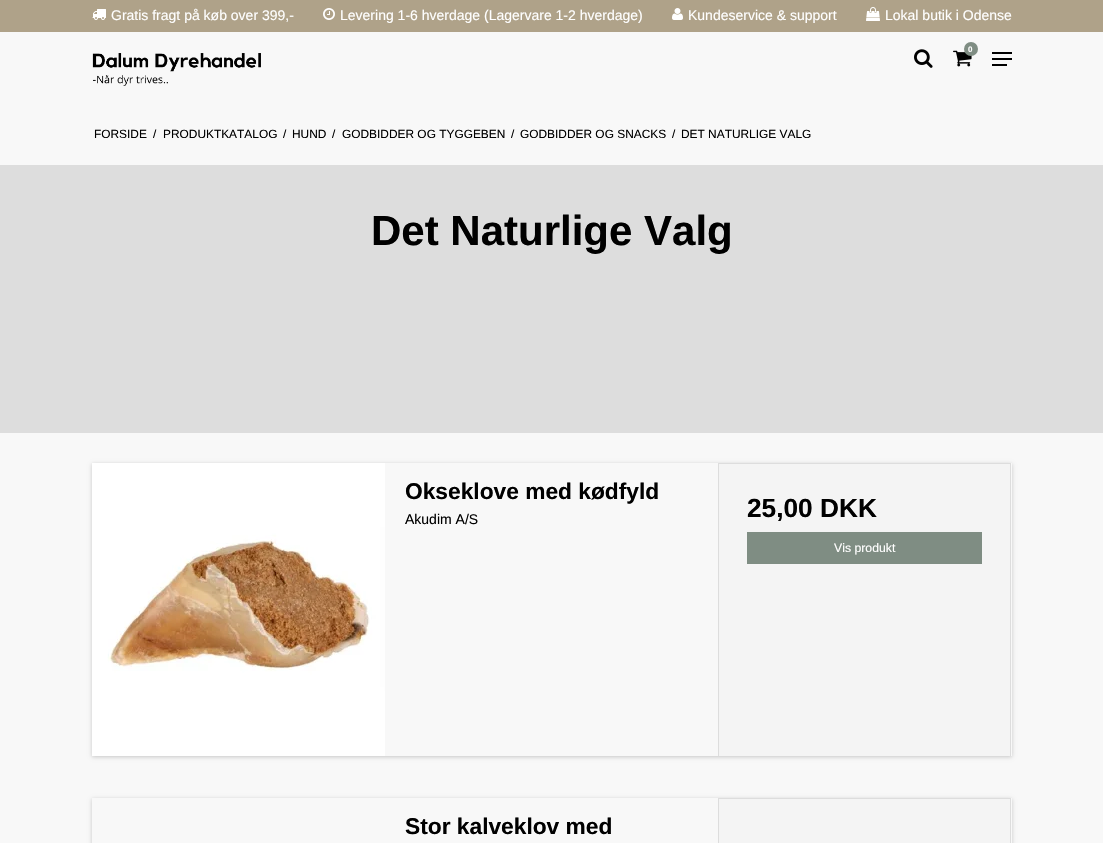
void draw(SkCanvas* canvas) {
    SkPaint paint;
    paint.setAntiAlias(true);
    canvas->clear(0xFFF8F8F8);
    paint.setColor(0xFFAFA289);
    canvas->drawRect(SkRect::MakeXYWH(0, 0, 1103, 32), paint);
    canvas->drawImageRect(SkImages::DeferredFromEncodedData(SkData::MakeFromFileName("img1.png")), SkRect::MakeXYWH(92, 9, 14, 11), SkSamplingOptions());
    SkFont font1(fontMgr->matchFamilyStyle("Liberation Sans", SkFontStyle::Normal()), 14);
    font1.setSubpixel(true);
    paint.setColor(0xFFFFFFFF);
    canvas->drawString("Gratis fragt på køb over 399,-", 111, 20, font1, paint);
    canvas->drawImageRect(SkImages::DeferredFromEncodedData(SkData::MakeFromFileName("img2.png")), SkRect::MakeXYWH(323, 8, 12, 12), SkSamplingOptions());
    canvas->drawString("Levering 1-6 hverdage (Lagervare 1-2 hverdage)", 340, 20, font1, paint);
    canvas->drawImageRect(SkImages::DeferredFromEncodedData(SkData::MakeFromFileName("img3.png")), SkRect::MakeXYWH(672, 8, 11, 12), SkSamplingOptions());
    canvas->drawString("Kundeservice & support", 688, 20, font1, paint);
    canvas->drawImageRect(SkImages::DeferredFromEncodedData(SkData::MakeFromFileName("img4.png")), SkRect::MakeXYWH(866, 7, 14, 14), SkSamplingOptions());
    canvas->drawString("Lokal butik i Odense", 885, 20, font1, paint);
    canvas->drawImageRect(SkImages::DeferredFromEncodedData(SkData::MakeFromFileName("img5.png")), SkRect::MakeXYWH(914, 49, 19, 19), SkSamplingOptions());
    canvas->drawImageRect(SkImages::DeferredFromEncodedData(SkData::MakeFromFileName("img6.png")), SkRect::MakeXYWH(953, 50, 19, 17), SkSamplingOptions());
    paint.setColor(0xFF7F8D83);
    canvas->drawCircle(971, 49, 7, paint);
    SkFont font2(fontMgr->matchFamilyStyle("Liberation Sans", SkFontStyle::Bold()), 8);
    font2.setSubpixel(true);
    paint.setColor(0xFFFFFFFF);
    canvas->drawString("0", 968, 52, font2, paint);
    paint.setColor(0xFF000000);
    canvas->drawRect(SkRect::MakeXYWH(992, 52, 20, 2), paint);
    canvas->drawRect(SkRect::MakeXYWH(992, 58, 20, 2), paint);
    canvas->drawRect(SkRect::MakeXYWH(992, 64, 15, 2), paint);
    canvas->drawImageRect(SkImages::DeferredFromEncodedData(SkData::MakeFromFileName("img7.png")), SkRect::MakeXYWH(92, 53, 169, 33), SkSamplingOptions());
    SkFont font3(fontMgr->matchFamilyStyle("Liberation Sans", SkFontStyle::Normal()), 11.9f);
    font3.setSubpixel(true);
    canvas->drawString("FORSIDE", 94, 138, font3, paint);
    canvas->drawString("/", 153, 138, font3, paint);
    canvas->drawString("PRODUKTKATALOG", 163, 138, font3, paint);
    canvas->drawString("/", 283, 138, font3, paint);
    canvas->drawString("HUND", 292, 138, font3, paint);
    canvas->drawString("/", 332, 138, font3, paint);
    canvas->drawString("GODBIDDER OG TYGGEBEN", 342, 138, font3, paint);
    canvas->drawString("/", 511, 138, font3, paint);
    canvas->drawString("GODBIDDER OG SNACKS", 520, 138, font3, paint);
    canvas->drawString("/", 672, 138, font3, paint);
    canvas->drawString("DET NATURLIGE VALG", 681, 138, font3, paint);
    paint.setColor(0xFFDDDDDD);
    canvas->drawRect(SkRect::MakeXYWH(0, 165, 1103, 268), paint);
    SkFont font4(fontMgr->matchFamilyStyle("Liberation Sans", SkFontStyle::Bold()), 42);
    font4.setSubpixel(true);
    paint.setColor(0xFF000000);
    canvas->drawString("Det Naturlige Valg", 371, 245, font4, paint);
    canvas->save();
    canvas->clipPath(SkPathBuilder(SkPathFillType::kEvenOdd).moveTo(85, 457).lineTo(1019, 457).lineTo(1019, 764).lineTo(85, 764).close().moveTo(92, 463).lineTo(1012, 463).lineTo(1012, 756).lineTo(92, 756).close().detach(), true);
    paint.setColor(0x33000000);
    paint.setMaskFilter(SkMaskFilter::MakeBlur(kNormal_SkBlurStyle, 2));
    canvas->drawRect(SkRect::MakeXYWH(92, 464, 920, 293), paint);
    paint.setMaskFilter(nullptr);
    canvas->restore();
    canvas->drawImageRect(SkImages::DeferredFromEncodedData(SkData::MakeFromFileName("img8.png")), SkRect::MakeXYWH(92, 463, 293, 293), SkSamplingOptions());
    SkFont font5(fontMgr->matchFamilyStyle("Liberation Sans", SkFontStyle::Bold()), 22.75f);
    font5.setSubpixel(true);
    paint.setColor(0xFF000000);
    canvas->drawString("Okseklove med kødfyld", 405, 499, font5, paint);
    canvas->drawString("Akudim A/S", 405, 524, font1, paint);
    paint.setColor(0xFFF4F4F4);
    canvas->drawRect(SkRect::MakeXYWH(719, 464, 291, 292), paint);
    paint.setColor(0xFFDDDDDD);
    canvas->drawRect(SkRect::MakeXYWH(718, 463, 293, 1), paint);
    canvas->drawRect(SkRect::MakeXYWH(1010, 463, 1, 293), paint);
    canvas->drawRect(SkRect::MakeXYWH(718, 463, 1, 293), paint);
    SkFont font6(fontMgr->matchFamilyStyle("Liberation Sans", SkFontStyle::Bold()), 26.25f);
    font6.setSubpixel(true);
    paint.setColor(0xFF000000);
    canvas->drawString("25,00 DKK", 747, 517, font6, paint);
    paint.setColor(0xFF7F8D83);
    canvas->drawRect(SkRect::MakeXYWH(747, 532, 235, 32), paint);
    SkFont font7(fontMgr->matchFamilyStyle("Liberation Sans", SkFontStyle::Normal()), 12.25f);
    font7.setSubpixel(true);
    paint.setColor(0xFFFFFFFF);
    canvas->drawString("Vis produkt", 834, 552, font7, paint);
    canvas->save();
    canvas->clipPath(SkPathBuilder(SkPathFillType::kEvenOdd).moveTo(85, 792).lineTo(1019, 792).lineTo(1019, 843).lineTo(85, 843).close().moveTo(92, 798).lineTo(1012, 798).lineTo(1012, 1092).lineTo(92, 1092).close().detach(), true);
    paint.setColor(0x33000000);
    paint.setMaskFilter(SkMaskFilter::MakeBlur(kNormal_SkBlurStyle, 2));
    canvas->drawRect(SkRect::MakeXYWH(92, 799, 920, 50), paint);
    paint.setMaskFilter(nullptr);
    canvas->restore();
    paint.setColor(0xFF000000);
    canvas->drawString("Stor kalveklov med", 405, 834, font5, paint);
    paint.setColor(0xFFF4F4F4);
    canvas->drawRect(SkRect::MakeXYWH(719, 799, 291, 44), paint);
    paint.setColor(0xFFDDDDDD);
    canvas->drawRect(SkRect::MakeXYWH(718, 798, 293, 1), paint);
    canvas->drawRect(SkRect::MakeXYWH(1010, 798, 1, 45), paint);
    canvas->drawRect(SkRect::MakeXYWH(718, 798, 1, 45), paint);
}
